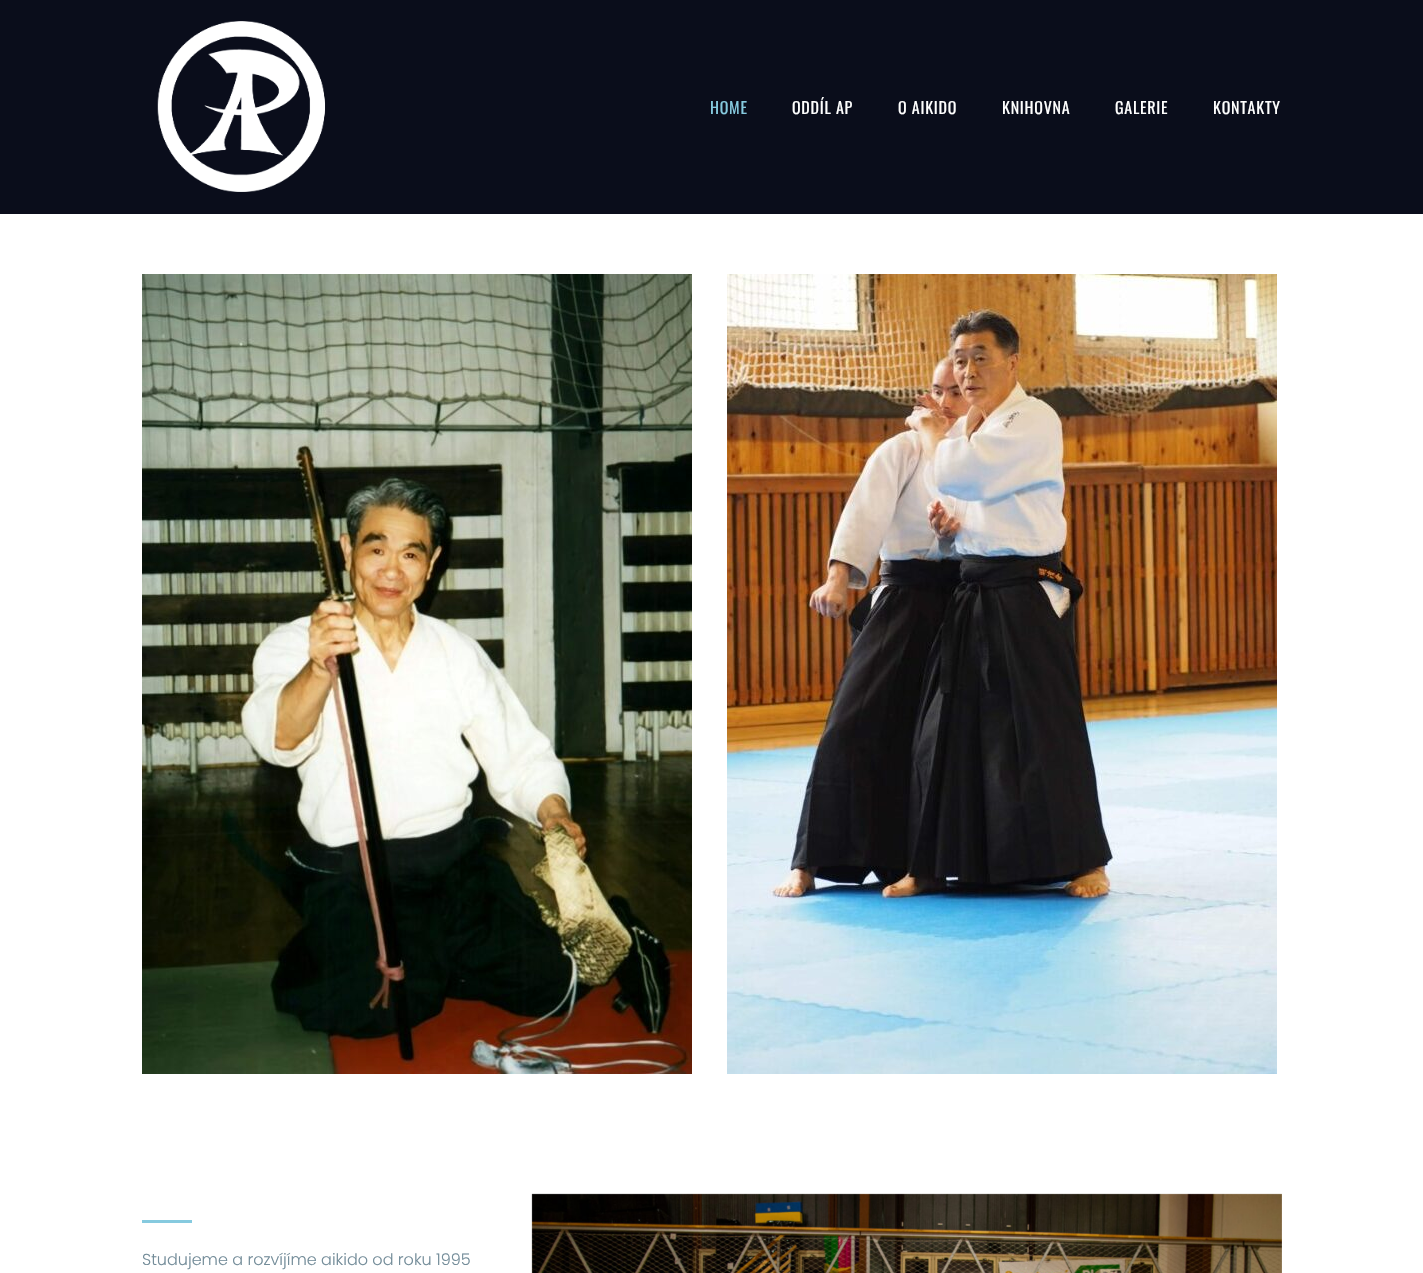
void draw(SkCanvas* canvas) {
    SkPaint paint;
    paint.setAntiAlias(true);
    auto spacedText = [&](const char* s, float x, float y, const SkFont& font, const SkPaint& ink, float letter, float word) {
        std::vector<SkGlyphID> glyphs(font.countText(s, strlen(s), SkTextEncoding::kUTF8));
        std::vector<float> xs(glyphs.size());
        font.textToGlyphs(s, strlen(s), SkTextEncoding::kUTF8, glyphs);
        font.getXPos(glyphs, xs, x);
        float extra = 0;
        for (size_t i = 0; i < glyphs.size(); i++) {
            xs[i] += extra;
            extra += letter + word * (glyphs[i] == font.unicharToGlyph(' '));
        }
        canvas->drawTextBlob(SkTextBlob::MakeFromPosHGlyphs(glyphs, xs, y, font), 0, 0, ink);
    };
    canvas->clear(0xFFFFFFFF);
    paint.setColor(0xFF0A0D1B);
    canvas->drawRect(SkRect::MakeXYWH(0, 0, 1423, 214), paint);
    canvas->drawImageRect(SkImages::DeferredFromEncodedData(SkData::MakeFromFileName("img1.png")), SkRect::MakeXYWH(157, 21, 169, 171), SkSamplingOptions());
    SkFont font1(fontMgr->matchFamilyStyle("Oswald", SkFontStyle::Normal()), 16);
    font1.setSubpixel(true);
    paint.setColor(0xFF86CADF);
    spacedText("HOME", 710, 114, font1, paint, 0.75f, 0);
    paint.setColor(0xFFFFFFFF);
    spacedText("ODDÍL AP", 792, 114, font1, paint, 0.75f, 0);
    spacedText("O AIKIDO", 898, 114, font1, paint, 0.75f, 0);
    spacedText("KNIHOVNA", 1002, 114, font1, paint, 0.75f, 0);
    spacedText("GALERIE", 1115, 114, font1, paint, 0.75f, 0);
    spacedText("KONTAKTY", 1213, 114, font1, paint, 0.75f, 0);
    canvas->drawImageRect(SkImages::DeferredFromEncodedData(SkData::MakeFromFileName("img2.png")), SkRect::MakeXYWH(142, 274, 550, 800), SkSamplingOptions());
    canvas->drawImageRect(SkImages::DeferredFromEncodedData(SkData::MakeFromFileName("img3.png")), SkRect::MakeXYWH(727, 274, 550, 800), SkSamplingOptions());
    paint.setColor(0xFF86CADF);
    canvas->drawRect(SkRect::MakeXYWH(142, 1220, 50, 3), paint);
    SkFont font2(fontMgr->matchFamilyStyle("Poppins", SkFontStyle(300, SkFontStyle::kNormal_Width, SkFontStyle::kUpright_Slant)), 16);
    font2.setSubpixel(true);
    paint.setColor(0xFF738C99);
    canvas->drawString("Studujeme a rozvíjíme aikido od roku 1995", 142, 1265, font2, paint);
    canvas->drawImageRect(SkImages::DeferredFromEncodedData(SkData::MakeFromFileName("img4.png")), SkRect::MakeXYWH(531, 1193, 751, 80), SkSamplingOptions());
}
